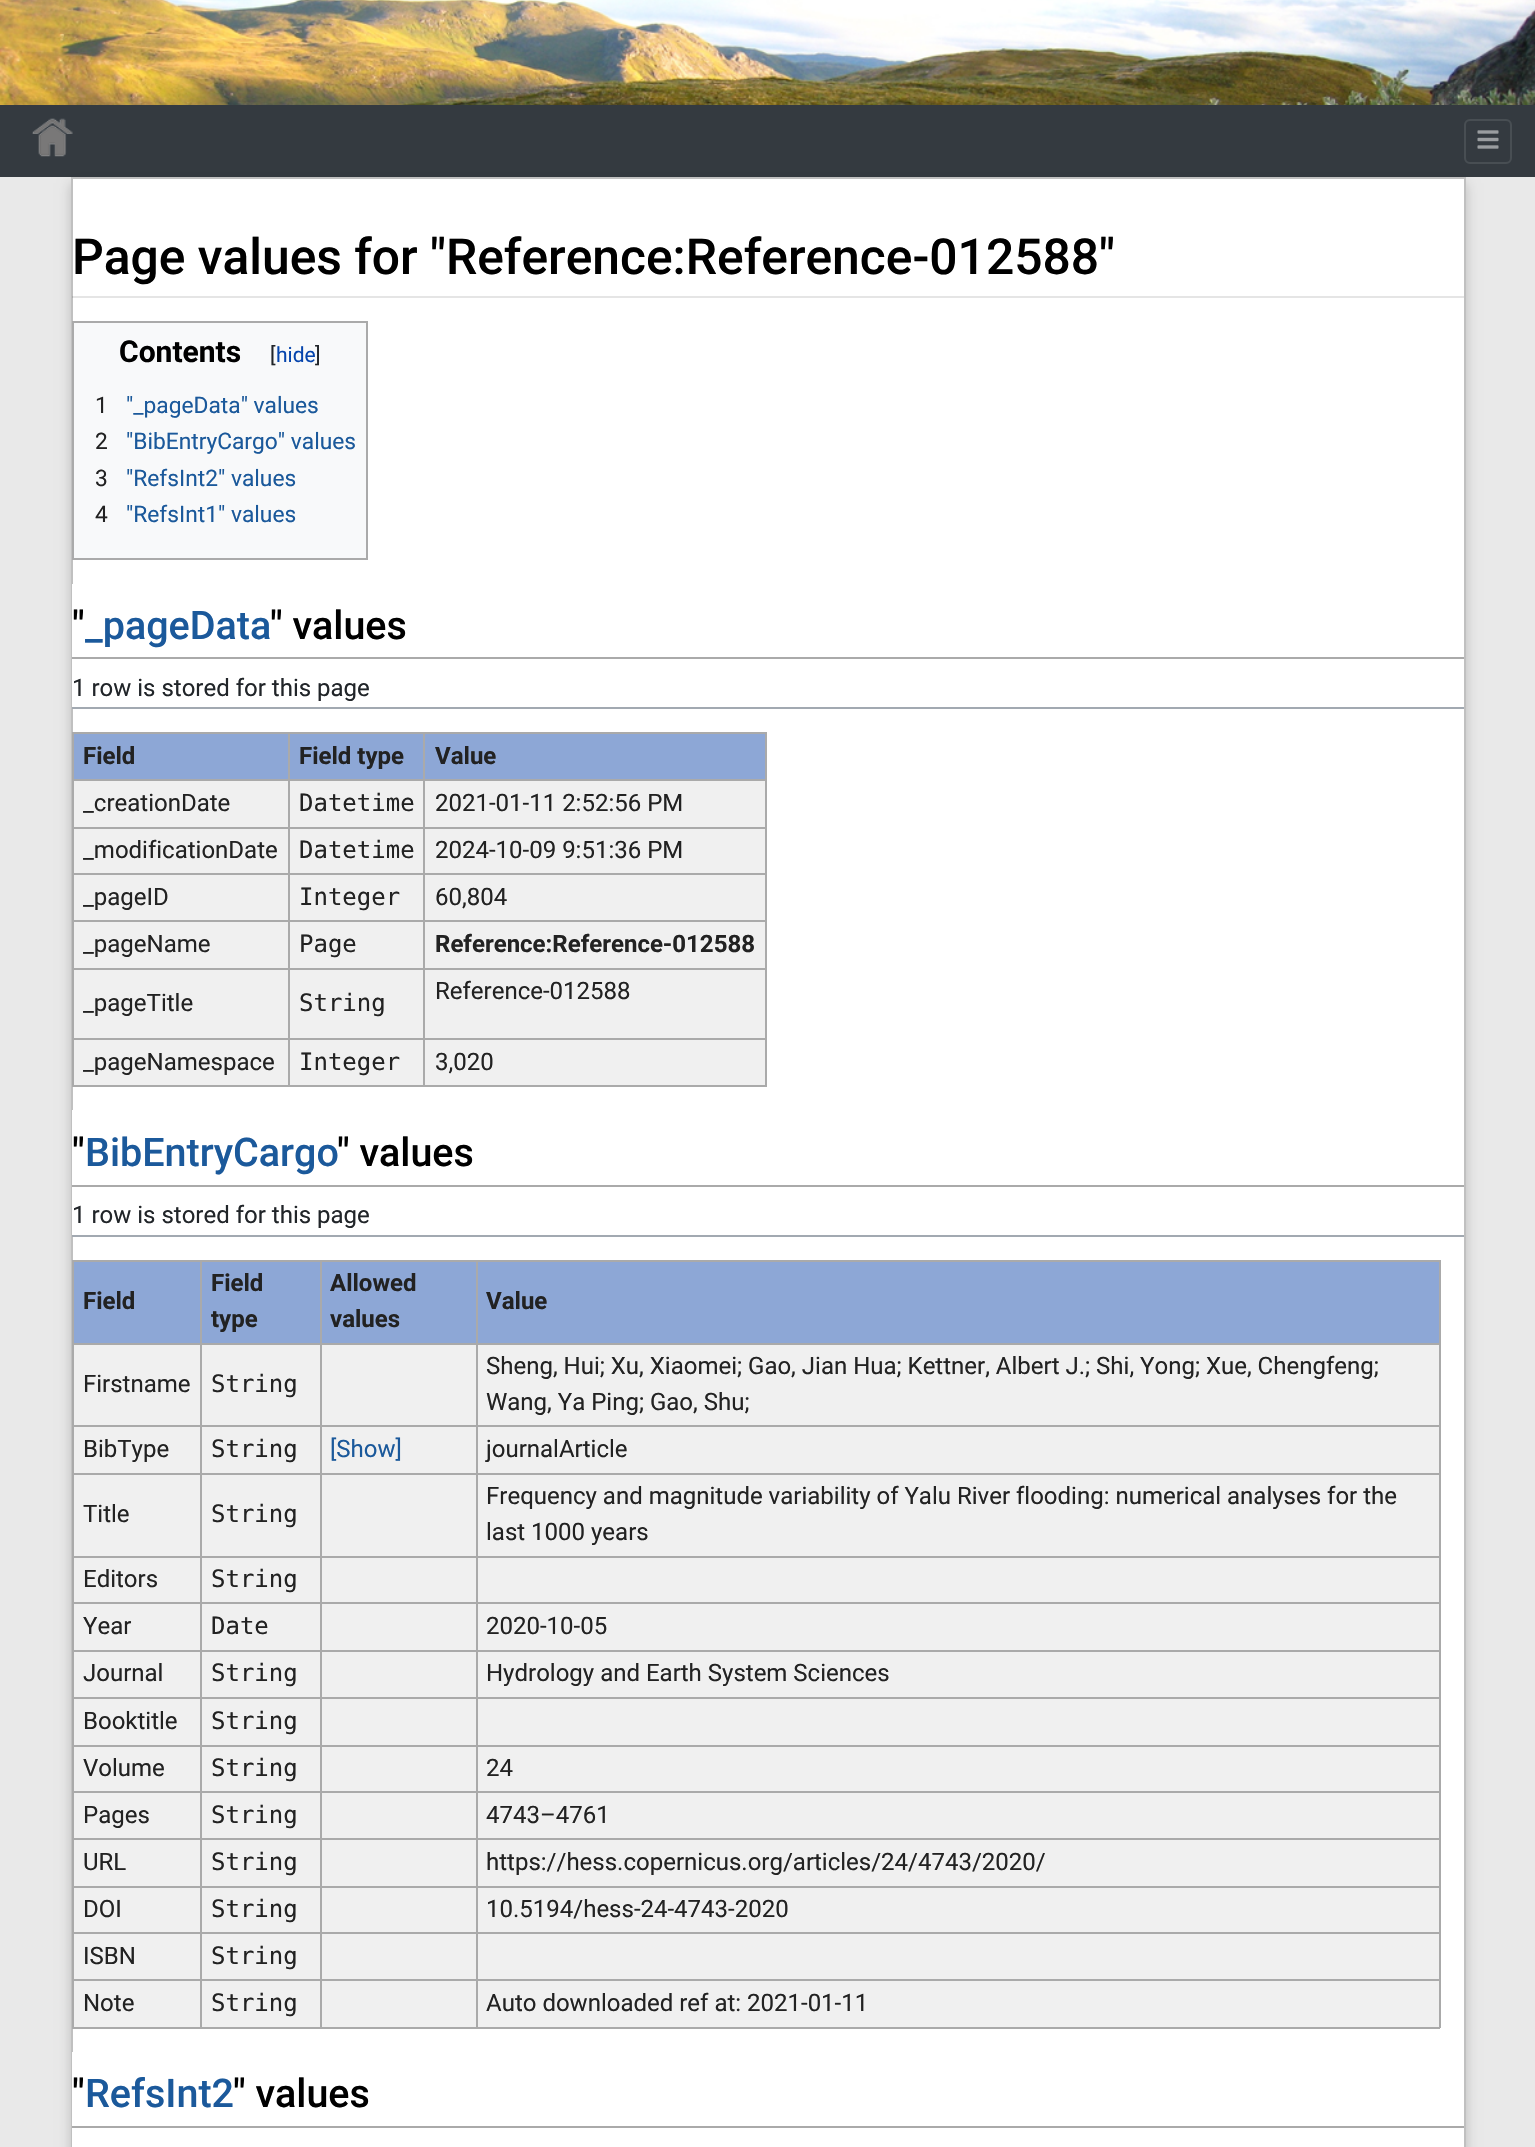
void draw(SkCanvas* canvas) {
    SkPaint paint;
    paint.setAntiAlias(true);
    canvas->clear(0xFFE9E9E9);
    canvas->drawImageRect(SkImages::DeferredFromEncodedData(SkData::MakeFromFileName("img1.png")), SkRect::MakeXYWH(0, 0, 1535, 105), SkSamplingOptions());
    paint.setColor(0xFF343A40);
    canvas->drawRect(SkRect::MakeXYWH(0, 105, 1535, 72), paint);
    canvas->drawImageRect(SkImages::DeferredFromEncodedData(SkData::MakeFromFileName("img2.png")), SkRect::MakeXYWH(32, 118, 41, 39), SkSamplingOptions());
    paint.setStyle(SkPaint::kStroke_Style);
    paint.setStrokeWidth(2);
    paint.setColor(0xFF484E53);
    canvas->drawRoundRect(SkRect::MakeXYWH(1465, 120, 46, 43), 5, 5, paint);
    canvas->drawImageRect(SkImages::DeferredFromEncodedData(SkData::MakeFromFileName("img3.png")), SkRect::MakeXYWH(1477, 130, 22, 19), SkSamplingOptions());
    paint.setStyle(SkPaint::kFill_Style);
    paint.setColor(0x33000000);
    paint.setMaskFilter(SkMaskFilter::MakeBlur(kNormal_SkBlurStyle, 6));
    canvas->drawRect(SkRect::MakeXYWH(71, 183, 1395, 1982), paint);
    paint.setMaskFilter(nullptr);
    paint.setColor(0xFFFFFFFF);
    canvas->drawRect(SkRect::MakeXYWH(73, 179, 1391, 1873), paint);
    paint.setStyle(SkPaint::kStroke_Style);
    paint.setColor(0xFFC0C0C0);
    canvas->drawRect(SkRect::MakeXYWH(72, 178, 1393, 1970), paint);
    paint.setStyle(SkPaint::kFill_Style);
    paint.setColor(0x1A000000);
    canvas->drawRect(SkRect::MakeXYWH(72, 296, 1392, 2), paint);
    SkFont font1(fontMgr->matchFamilyStyle("Roboto", SkFontStyle(500, SkFontStyle::kNormal_Width, SkFontStyle::kUpright_Slant)), 49.75f);
    font1.setSubpixel(true);
    paint.setColor(0xFF000000);
    canvas->drawString("Page values for \"Reference:Reference-012588\"", 72, 274, font1, paint);
    paint.setColor(0xFFF8F9FA);
    canvas->drawRect(SkRect::MakeXYWH(73, 322, 294, 237), paint);
    paint.setStyle(SkPaint::kStroke_Style);
    paint.setColor(0xFFAAAAAA);
    canvas->drawRect(SkRect::MakeXYWH(73, 322, 294, 237), paint);
    SkFont font2(fontMgr->matchFamilyStyle("Roboto", SkFontStyle::Bold()), 30);
    font2.setSubpixel(true);
    paint.setStyle(SkPaint::kFill_Style);
    paint.setColor(0xFF000000);
    canvas->drawString("Contents", 119, 362, font2, paint);
    SkFont font3(fontMgr->matchFamilyStyle("Roboto", SkFontStyle::Normal()), 21);
    font3.setSubpixel(true);
    paint.setColor(0xFF212529);
    canvas->drawString("[", 270, 362, font3, paint);
    paint.setColor(0xFF0645AD);
    canvas->drawString("hide", 276, 362, font3, paint);
    paint.setColor(0xFF212529);
    canvas->drawString("]", 315, 362, font3, paint);
    SkFont font4(fontMgr->matchFamilyStyle("Roboto", SkFontStyle::Normal()), 22.75f);
    font4.setSubpixel(true);
    paint.setColor(0xFF222222);
    canvas->drawString("1", 95, 413, font4, paint);
    paint.setColor(0xFF1B599B);
    canvas->drawString("\"_pageData\" values", 126, 413, font4, paint);
    paint.setColor(0xFF222222);
    canvas->drawString("2", 95, 449, font4, paint);
    paint.setColor(0xFF1B599B);
    canvas->drawString("\"BibEntryCargo\" values", 126, 449, font4, paint);
    paint.setColor(0xFF222222);
    canvas->drawString("3", 95, 486, font4, paint);
    paint.setColor(0xFF1B599B);
    canvas->drawString("\"RefsInt2\" values", 126, 486, font4, paint);
    paint.setColor(0xFF222222);
    canvas->drawString("4", 95, 522, font4, paint);
    paint.setColor(0xFF1B599B);
    canvas->drawString("\"RefsInt1\" values", 126, 522, font4, paint);
    paint.setColor(0xFFFFFFFF);
    canvas->drawRect(SkRect::MakeXYWH(72, 584, 1, 123), paint);
    paint.setColor(0xFFA2A9B1);
    canvas->drawRect(SkRect::MakeXYWH(72, 707, 1392, 2), paint);
    paint.setColor(0xFFAAAAAA);
    canvas->drawRect(SkRect::MakeXYWH(72, 657, 1392, 2), paint);
    SkFont font5(fontMgr->matchFamilyStyle("Roboto", SkFontStyle(500, SkFontStyle::kNormal_Width, SkFontStyle::kUpright_Slant)), 39.5f);
    font5.setSubpixel(true);
    paint.setColor(0xFF000000);
    canvas->drawString("\"", 72, 639, font5, paint);
    paint.setColor(0xFF1B599B);
    canvas->drawString("_pageData", 85, 639, font5, paint);
    paint.setColor(0xFF000000);
    canvas->drawString("\" values", 270, 639, font5, paint);
    SkFont font6(fontMgr->matchFamilyStyle("Roboto", SkFontStyle::Normal()), 24);
    font6.setSubpixel(true);
    paint.setColor(0xFF212529);
    canvas->drawString("1 row is stored for this page", 72, 696, font6, paint);
    paint.setColor(0xFFAAAAAA);
    canvas->drawRect(SkRect::MakeXYWH(72, 732, 695, 2), paint);
    canvas->drawRect(SkRect::MakeXYWH(765, 732, 2, 354), paint);
    canvas->drawRect(SkRect::MakeXYWH(72, 1085, 695, 2), paint);
    canvas->drawRect(SkRect::MakeXYWH(72, 732, 2, 354), paint);
    paint.setColor(0xFF8DA7D6);
    canvas->drawRect(SkRect::MakeXYWH(74, 734, 214, 45), paint);
    SkFont font7(fontMgr->matchFamilyStyle("Roboto", SkFontStyle::Bold()), 24);
    font7.setSubpixel(true);
    paint.setColor(0xFF222222);
    canvas->drawString("Field", 83, 764, font7, paint);
    paint.setColor(0xFF8DA7D6);
    canvas->drawRect(SkRect::MakeXYWH(290, 734, 133, 45), paint);
    paint.setColor(0xFFAAAAAA);
    canvas->drawRect(SkRect::MakeXYWH(423, 779, 344, 2), paint);
    canvas->drawRect(SkRect::MakeXYWH(423, 827, 344, 2), paint);
    canvas->drawRect(SkRect::MakeXYWH(423, 873, 344, 2), paint);
    canvas->drawRect(SkRect::MakeXYWH(423, 920, 344, 2), paint);
    canvas->drawRect(SkRect::MakeXYWH(423, 968, 344, 2), paint);
    canvas->drawRect(SkRect::MakeXYWH(423, 1038, 344, 2), paint);
    canvas->drawRect(SkRect::MakeXYWH(423, 1038, 2, 48), paint);
    canvas->drawRect(SkRect::MakeXYWH(288, 1038, 137, 2), paint);
    canvas->drawRect(SkRect::MakeXYWH(423, 968, 2, 72), paint);
    canvas->drawRect(SkRect::MakeXYWH(288, 968, 137, 2), paint);
    canvas->drawRect(SkRect::MakeXYWH(423, 920, 2, 49), paint);
    canvas->drawRect(SkRect::MakeXYWH(288, 920, 137, 2), paint);
    canvas->drawRect(SkRect::MakeXYWH(423, 873, 2, 48), paint);
    canvas->drawRect(SkRect::MakeXYWH(288, 873, 137, 2), paint);
    canvas->drawRect(SkRect::MakeXYWH(423, 827, 2, 48), paint);
    canvas->drawRect(SkRect::MakeXYWH(288, 827, 137, 2), paint);
    canvas->drawRect(SkRect::MakeXYWH(423, 779, 2, 49), paint);
    canvas->drawRect(SkRect::MakeXYWH(288, 779, 137, 2), paint);
    canvas->drawRect(SkRect::MakeXYWH(288, 1038, 2, 48), paint);
    canvas->drawRect(SkRect::MakeXYWH(72, 1038, 218, 2), paint);
    canvas->drawRect(SkRect::MakeXYWH(288, 968, 2, 72), paint);
    canvas->drawRect(SkRect::MakeXYWH(72, 968, 218, 2), paint);
    canvas->drawRect(SkRect::MakeXYWH(288, 920, 2, 49), paint);
    canvas->drawRect(SkRect::MakeXYWH(72, 920, 218, 2), paint);
    canvas->drawRect(SkRect::MakeXYWH(288, 873, 2, 48), paint);
    canvas->drawRect(SkRect::MakeXYWH(72, 873, 218, 2), paint);
    canvas->drawRect(SkRect::MakeXYWH(288, 827, 2, 48), paint);
    canvas->drawRect(SkRect::MakeXYWH(72, 827, 218, 2), paint);
    canvas->drawRect(SkRect::MakeXYWH(288, 779, 2, 49), paint);
    canvas->drawRect(SkRect::MakeXYWH(72, 779, 218, 2), paint);
    canvas->drawRect(SkRect::MakeXYWH(288, 732, 2, 48), paint);
    paint.setColor(0xFF222222);
    canvas->drawString("Field type", 299, 764, font7, paint);
    paint.setColor(0xFF8DA7D6);
    canvas->drawRect(SkRect::MakeXYWH(425, 734, 340, 45), paint);
    paint.setColor(0xFFAAAAAA);
    canvas->drawRect(SkRect::MakeXYWH(423, 732, 2, 48), paint);
    paint.setColor(0xFF222222);
    canvas->drawString("Value", 435, 764, font7, paint);
    paint.setColor(0xFFF0F0F0);
    canvas->drawRect(SkRect::MakeXYWH(74, 781, 214, 46), paint);
    paint.setColor(0xFF222222);
    canvas->drawString("_creationDate", 83, 811, font6, paint);
    paint.setColor(0xFFF0F0F0);
    canvas->drawRect(SkRect::MakeXYWH(290, 781, 133, 46), paint);
    SkFont font8(fontMgr->matchFamilyStyle("DejaVu Sans Mono", SkFontStyle::Normal()), 24);
    font8.setSubpixel(true);
    paint.setColor(0xFF222222);
    canvas->drawString("Datetime", 299, 811, font8, paint);
    paint.setColor(0xFFF0F0F0);
    canvas->drawRect(SkRect::MakeXYWH(425, 781, 340, 46), paint);
    paint.setColor(0xFF222222);
    canvas->drawString("2021-01-11 2:52:56 PM", 435, 811, font6, paint);
    paint.setColor(0xFFF0F0F0);
    canvas->drawRect(SkRect::MakeXYWH(74, 829, 214, 44), paint);
    paint.setColor(0xFF222222);
    canvas->drawString("_modificationDate", 83, 858, font6, paint);
    paint.setColor(0xFFF0F0F0);
    canvas->drawRect(SkRect::MakeXYWH(290, 829, 133, 44), paint);
    paint.setColor(0xFF222222);
    canvas->drawString("Datetime", 299, 858, font8, paint);
    paint.setColor(0xFFF0F0F0);
    canvas->drawRect(SkRect::MakeXYWH(425, 829, 340, 44), paint);
    paint.setColor(0xFF222222);
    canvas->drawString("2024-10-09 9:51:36 PM", 435, 858, font6, paint);
    paint.setColor(0xFFF0F0F0);
    canvas->drawRect(SkRect::MakeXYWH(74, 875, 214, 45), paint);
    paint.setColor(0xFF222222);
    canvas->drawString("_pageID", 83, 905, font6, paint);
    paint.setColor(0xFFF0F0F0);
    canvas->drawRect(SkRect::MakeXYWH(290, 875, 133, 45), paint);
    paint.setColor(0xFF222222);
    canvas->drawString("Integer", 299, 905, font8, paint);
    paint.setColor(0xFFF0F0F0);
    canvas->drawRect(SkRect::MakeXYWH(425, 875, 340, 45), paint);
    paint.setColor(0xFF222222);
    canvas->drawString("60,804", 435, 905, font6, paint);
    paint.setColor(0xFFF0F0F0);
    canvas->drawRect(SkRect::MakeXYWH(74, 922, 214, 46), paint);
    paint.setColor(0xFF222222);
    canvas->drawString("_pageName", 83, 952, font6, paint);
    paint.setColor(0xFFF0F0F0);
    canvas->drawRect(SkRect::MakeXYWH(290, 922, 133, 46), paint);
    paint.setColor(0xFF222222);
    canvas->drawString("Page", 299, 952, font8, paint);
    paint.setColor(0xFFF0F0F0);
    canvas->drawRect(SkRect::MakeXYWH(425, 922, 340, 46), paint);
    paint.setColor(0xFF222222);
    canvas->drawString("Reference:Reference-012588", 435, 952, font7, paint);
    paint.setColor(0xFFF0F0F0);
    canvas->drawRect(SkRect::MakeXYWH(425, 970, 340, 68), paint);
    paint.setColor(0xFF222222);
    canvas->drawString("Reference-012588", 435, 999, font6, paint);
    paint.setColor(0xFFF0F0F0);
    canvas->drawRect(SkRect::MakeXYWH(74, 970, 214, 68), paint);
    paint.setColor(0xFF222222);
    canvas->drawString("_pageTitle", 83, 1011, font6, paint);
    paint.setColor(0xFFF0F0F0);
    canvas->drawRect(SkRect::MakeXYWH(290, 970, 133, 68), paint);
    paint.setColor(0xFF222222);
    canvas->drawString("String", 299, 1011, font8, paint);
    paint.setColor(0xFFF0F0F0);
    canvas->drawRect(SkRect::MakeXYWH(74, 1040, 214, 45), paint);
    paint.setColor(0xFF222222);
    canvas->drawString("_pageNamespace", 83, 1070, font6, paint);
    paint.setColor(0xFFF0F0F0);
    canvas->drawRect(SkRect::MakeXYWH(290, 1040, 133, 45), paint);
    paint.setColor(0xFF222222);
    canvas->drawString("Integer", 299, 1070, font8, paint);
    paint.setColor(0xFFF0F0F0);
    canvas->drawRect(SkRect::MakeXYWH(425, 1040, 340, 45), paint);
    paint.setColor(0xFF222222);
    canvas->drawString("3,020", 435, 1070, font6, paint);
    paint.setColor(0xFFFFFFFF);
    canvas->drawRect(SkRect::MakeXYWH(72, 1110, 1, 125), paint);
    paint.setColor(0xFFA2A9B1);
    canvas->drawRect(SkRect::MakeXYWH(72, 1235, 1392, 2), paint);
    paint.setColor(0xFFAAAAAA);
    canvas->drawRect(SkRect::MakeXYWH(72, 1185, 1392, 2), paint);
    paint.setColor(0xFF000000);
    canvas->drawString("\"", 72, 1166, font5, paint);
    paint.setColor(0xFF1B599B);
    canvas->drawString("BibEntryCargo", 85, 1166, font5, paint);
    paint.setColor(0xFF000000);
    canvas->drawString("\" values", 337, 1166, font5, paint);
    paint.setColor(0xFF212529);
    canvas->drawString("1 row is stored for this page", 72, 1223, font6, paint);
    paint.setColor(0xFFAAAAAA);
    canvas->drawRect(SkRect::MakeXYWH(72, 1260, 1368, 2), paint);
    canvas->drawRect(SkRect::MakeXYWH(1439, 1260, 2, 768), paint);
    canvas->drawRect(SkRect::MakeXYWH(72, 2027, 1368, 2), paint);
    canvas->drawRect(SkRect::MakeXYWH(72, 1260, 2, 768), paint);
    paint.setColor(0xFF8DA7D6);
    canvas->drawRect(SkRect::MakeXYWH(74, 1262, 126, 81), paint);
    paint.setColor(0xFF222222);
    canvas->drawString("Field", 83, 1309, font7, paint);
    paint.setColor(0xFF8DA7D6);
    canvas->drawRect(SkRect::MakeXYWH(202, 1262, 118, 81), paint);
    paint.setColor(0xFFAAAAAA);
    canvas->drawRect(SkRect::MakeXYWH(476, 1343, 964, 2), paint);
    canvas->drawRect(SkRect::MakeXYWH(476, 1425, 964, 2), paint);
    canvas->drawRect(SkRect::MakeXYWH(476, 1473, 964, 2), paint);
    canvas->drawRect(SkRect::MakeXYWH(476, 1556, 964, 2), paint);
    canvas->drawRect(SkRect::MakeXYWH(476, 1602, 964, 2), paint);
    canvas->drawRect(SkRect::MakeXYWH(476, 1650, 964, 2), paint);
    canvas->drawRect(SkRect::MakeXYWH(476, 1697, 964, 2), paint);
    canvas->drawRect(SkRect::MakeXYWH(476, 1745, 964, 2), paint);
    canvas->drawRect(SkRect::MakeXYWH(476, 1791, 964, 2), paint);
    canvas->drawRect(SkRect::MakeXYWH(476, 1838, 964, 2), paint);
    canvas->drawRect(SkRect::MakeXYWH(476, 1886, 964, 2), paint);
    canvas->drawRect(SkRect::MakeXYWH(476, 1932, 964, 2), paint);
    canvas->drawRect(SkRect::MakeXYWH(476, 1979, 964, 2), paint);
    canvas->drawRect(SkRect::MakeXYWH(476, 1979, 2, 49), paint);
    canvas->drawRect(SkRect::MakeXYWH(320, 1979, 157, 2), paint);
    canvas->drawRect(SkRect::MakeXYWH(476, 1932, 2, 48), paint);
    canvas->drawRect(SkRect::MakeXYWH(320, 1932, 157, 2), paint);
    canvas->drawRect(SkRect::MakeXYWH(476, 1886, 2, 48), paint);
    canvas->drawRect(SkRect::MakeXYWH(320, 1886, 157, 2), paint);
    canvas->drawRect(SkRect::MakeXYWH(476, 1838, 2, 49), paint);
    canvas->drawRect(SkRect::MakeXYWH(320, 1838, 157, 2), paint);
    canvas->drawRect(SkRect::MakeXYWH(476, 1791, 2, 48), paint);
    canvas->drawRect(SkRect::MakeXYWH(320, 1791, 157, 2), paint);
    canvas->drawRect(SkRect::MakeXYWH(476, 1745, 2, 48), paint);
    canvas->drawRect(SkRect::MakeXYWH(320, 1745, 157, 2), paint);
    canvas->drawRect(SkRect::MakeXYWH(476, 1697, 2, 49), paint);
    canvas->drawRect(SkRect::MakeXYWH(320, 1697, 157, 2), paint);
    canvas->drawRect(SkRect::MakeXYWH(476, 1650, 2, 48), paint);
    canvas->drawRect(SkRect::MakeXYWH(320, 1650, 157, 2), paint);
    canvas->drawRect(SkRect::MakeXYWH(476, 1602, 2, 50), paint);
    canvas->drawRect(SkRect::MakeXYWH(320, 1602, 157, 2), paint);
    canvas->drawRect(SkRect::MakeXYWH(476, 1556, 2, 48), paint);
    canvas->drawRect(SkRect::MakeXYWH(320, 1556, 157, 2), paint);
    canvas->drawRect(SkRect::MakeXYWH(476, 1473, 2, 84), paint);
    canvas->drawRect(SkRect::MakeXYWH(320, 1473, 157, 2), paint);
    canvas->drawRect(SkRect::MakeXYWH(476, 1425, 2, 50), paint);
    canvas->drawRect(SkRect::MakeXYWH(320, 1425, 157, 2), paint);
    canvas->drawRect(SkRect::MakeXYWH(476, 1343, 2, 84), paint);
    canvas->drawRect(SkRect::MakeXYWH(320, 1343, 157, 2), paint);
    canvas->drawRect(SkRect::MakeXYWH(320, 1979, 2, 49), paint);
    canvas->drawRect(SkRect::MakeXYWH(200, 1979, 121, 2), paint);
    canvas->drawRect(SkRect::MakeXYWH(320, 1932, 2, 48), paint);
    canvas->drawRect(SkRect::MakeXYWH(200, 1932, 121, 2), paint);
    canvas->drawRect(SkRect::MakeXYWH(320, 1886, 2, 48), paint);
    canvas->drawRect(SkRect::MakeXYWH(200, 1886, 121, 2), paint);
    canvas->drawRect(SkRect::MakeXYWH(320, 1838, 2, 49), paint);
    canvas->drawRect(SkRect::MakeXYWH(200, 1838, 121, 2), paint);
    canvas->drawRect(SkRect::MakeXYWH(320, 1791, 2, 48), paint);
    canvas->drawRect(SkRect::MakeXYWH(200, 1791, 121, 2), paint);
    canvas->drawRect(SkRect::MakeXYWH(320, 1745, 2, 48), paint);
    canvas->drawRect(SkRect::MakeXYWH(200, 1745, 121, 2), paint);
    canvas->drawRect(SkRect::MakeXYWH(320, 1697, 2, 49), paint);
    canvas->drawRect(SkRect::MakeXYWH(200, 1697, 121, 2), paint);
    canvas->drawRect(SkRect::MakeXYWH(320, 1650, 2, 48), paint);
    canvas->drawRect(SkRect::MakeXYWH(200, 1650, 121, 2), paint);
    canvas->drawRect(SkRect::MakeXYWH(320, 1602, 2, 50), paint);
    canvas->drawRect(SkRect::MakeXYWH(200, 1602, 121, 2), paint);
    canvas->drawRect(SkRect::MakeXYWH(320, 1556, 2, 48), paint);
    canvas->drawRect(SkRect::MakeXYWH(200, 1556, 121, 2), paint);
    canvas->drawRect(SkRect::MakeXYWH(320, 1473, 2, 84), paint);
    canvas->drawRect(SkRect::MakeXYWH(200, 1473, 121, 2), paint);
    canvas->drawRect(SkRect::MakeXYWH(320, 1425, 2, 50), paint);
    canvas->drawRect(SkRect::MakeXYWH(200, 1425, 121, 2), paint);
    canvas->drawRect(SkRect::MakeXYWH(320, 1343, 2, 84), paint);
    canvas->drawRect(SkRect::MakeXYWH(200, 1343, 121, 2), paint);
    canvas->drawRect(SkRect::MakeXYWH(200, 1979, 2, 49), paint);
    canvas->drawRect(SkRect::MakeXYWH(72, 1979, 129, 2), paint);
    canvas->drawRect(SkRect::MakeXYWH(200, 1932, 2, 48), paint);
    canvas->drawRect(SkRect::MakeXYWH(72, 1932, 129, 2), paint);
    canvas->drawRect(SkRect::MakeXYWH(200, 1886, 2, 48), paint);
    canvas->drawRect(SkRect::MakeXYWH(72, 1886, 129, 2), paint);
    canvas->drawRect(SkRect::MakeXYWH(200, 1838, 2, 49), paint);
    canvas->drawRect(SkRect::MakeXYWH(72, 1838, 129, 2), paint);
    canvas->drawRect(SkRect::MakeXYWH(200, 1791, 2, 48), paint);
    canvas->drawRect(SkRect::MakeXYWH(72, 1791, 129, 2), paint);
    canvas->drawRect(SkRect::MakeXYWH(200, 1745, 2, 48), paint);
    canvas->drawRect(SkRect::MakeXYWH(72, 1745, 129, 2), paint);
    canvas->drawRect(SkRect::MakeXYWH(200, 1697, 2, 49), paint);
    canvas->drawRect(SkRect::MakeXYWH(72, 1697, 129, 2), paint);
    canvas->drawRect(SkRect::MakeXYWH(200, 1650, 2, 48), paint);
    canvas->drawRect(SkRect::MakeXYWH(72, 1650, 129, 2), paint);
    canvas->drawRect(SkRect::MakeXYWH(200, 1602, 2, 50), paint);
    canvas->drawRect(SkRect::MakeXYWH(72, 1602, 129, 2), paint);
    canvas->drawRect(SkRect::MakeXYWH(200, 1556, 2, 48), paint);
    canvas->drawRect(SkRect::MakeXYWH(72, 1556, 129, 2), paint);
    canvas->drawRect(SkRect::MakeXYWH(200, 1473, 2, 84), paint);
    canvas->drawRect(SkRect::MakeXYWH(72, 1473, 129, 2), paint);
    canvas->drawRect(SkRect::MakeXYWH(200, 1425, 2, 50), paint);
    canvas->drawRect(SkRect::MakeXYWH(72, 1425, 129, 2), paint);
    canvas->drawRect(SkRect::MakeXYWH(200, 1343, 2, 84), paint);
    canvas->drawRect(SkRect::MakeXYWH(72, 1343, 129, 2), paint);
    canvas->drawRect(SkRect::MakeXYWH(200, 1260, 2, 84), paint);
    paint.setColor(0xFF222222);
    canvas->drawString("Field", 211, 1291, font7, paint);
    canvas->drawString("type", 211, 1327, font7, paint);
    paint.setColor(0xFF8DA7D6);
    canvas->drawRect(SkRect::MakeXYWH(322, 1262, 154, 81), paint);
    paint.setColor(0xFFAAAAAA);
    canvas->drawRect(SkRect::MakeXYWH(320, 1260, 2, 84), paint);
    paint.setColor(0xFF222222);
    canvas->drawString("Allowed", 330, 1291, font7, paint);
    canvas->drawString("values", 330, 1327, font7, paint);
    paint.setColor(0xFF8DA7D6);
    canvas->drawRect(SkRect::MakeXYWH(478, 1262, 961, 81), paint);
    paint.setColor(0xFFAAAAAA);
    canvas->drawRect(SkRect::MakeXYWH(476, 1260, 2, 84), paint);
    paint.setColor(0xFF222222);
    canvas->drawString("Value", 486, 1309, font7, paint);
    paint.setColor(0xFFF0F0F0);
    canvas->drawRect(SkRect::MakeXYWH(74, 1345, 126, 80), paint);
    paint.setColor(0xFF222222);
    canvas->drawString("Firstname", 83, 1392, font6, paint);
    paint.setColor(0xFFF0F0F0);
    canvas->drawRect(SkRect::MakeXYWH(202, 1345, 118, 80), paint);
    paint.setColor(0xFF222222);
    canvas->drawString("String", 211, 1392, font8, paint);
    paint.setColor(0xFFF0F0F0);
    canvas->drawRect(SkRect::MakeXYWH(322, 1345, 154, 80), paint);
    canvas->drawRect(SkRect::MakeXYWH(478, 1345, 961, 80), paint);
    paint.setColor(0xFF222222);
    canvas->drawString("Sheng, Hui; Xu, Xiaomei; Gao, Jian Hua; Kettner, Albert J.; Shi, Yong; Xue, Chengfeng;", 486, 1374, font6, paint);
    canvas->drawString("Wang, Ya Ping; Gao, Shu;", 486, 1410, font6, paint);
    paint.setColor(0xFFF0F0F0);
    canvas->drawRect(SkRect::MakeXYWH(74, 1427, 126, 46), paint);
    paint.setColor(0xFF222222);
    canvas->drawString("BibType", 83, 1457, font6, paint);
    paint.setColor(0xFFF0F0F0);
    canvas->drawRect(SkRect::MakeXYWH(202, 1427, 118, 46), paint);
    paint.setColor(0xFF222222);
    canvas->drawString("String", 211, 1457, font8, paint);
    paint.setColor(0xFFF0F0F0);
    canvas->drawRect(SkRect::MakeXYWH(322, 1427, 154, 46), paint);
    paint.setColor(0xFF1B599B);
    canvas->drawString("[Show]", 330, 1457, font6, paint);
    paint.setColor(0xFFF0F0F0);
    canvas->drawRect(SkRect::MakeXYWH(478, 1427, 961, 46), paint);
    paint.setColor(0xFF222222);
    canvas->drawString("journalArticle", 486, 1457, font6, paint);
    paint.setColor(0xFFF0F0F0);
    canvas->drawRect(SkRect::MakeXYWH(74, 1475, 126, 81), paint);
    paint.setColor(0xFF222222);
    canvas->drawString("Title", 83, 1522, font6, paint);
    paint.setColor(0xFFF0F0F0);
    canvas->drawRect(SkRect::MakeXYWH(202, 1475, 118, 81), paint);
    paint.setColor(0xFF222222);
    canvas->drawString("String", 211, 1522, font8, paint);
    paint.setColor(0xFFF0F0F0);
    canvas->drawRect(SkRect::MakeXYWH(322, 1475, 154, 81), paint);
    canvas->drawRect(SkRect::MakeXYWH(478, 1475, 961, 81), paint);
    paint.setColor(0xFF222222);
    canvas->drawString("Frequency and magnitude variability of Yalu River flooding: numerical analyses for the", 486, 1504, font6, paint);
    canvas->drawString("last 1000 years", 486, 1540, font6, paint);
    paint.setColor(0xFFF0F0F0);
    canvas->drawRect(SkRect::MakeXYWH(74, 1558, 126, 44), paint);
    paint.setColor(0xFF222222);
    canvas->drawString("Editors", 83, 1587, font6, paint);
    paint.setColor(0xFFF0F0F0);
    canvas->drawRect(SkRect::MakeXYWH(202, 1558, 118, 44), paint);
    paint.setColor(0xFF222222);
    canvas->drawString("String", 211, 1587, font8, paint);
    paint.setColor(0xFFF0F0F0);
    canvas->drawRect(SkRect::MakeXYWH(322, 1558, 154, 44), paint);
    canvas->drawRect(SkRect::MakeXYWH(478, 1558, 961, 44), paint);
    canvas->drawRect(SkRect::MakeXYWH(74, 1604, 126, 46), paint);
    paint.setColor(0xFF222222);
    canvas->drawString("Year", 83, 1634, font6, paint);
    paint.setColor(0xFFF0F0F0);
    canvas->drawRect(SkRect::MakeXYWH(202, 1604, 118, 46), paint);
    paint.setColor(0xFF222222);
    canvas->drawString("Date", 211, 1634, font8, paint);
    paint.setColor(0xFFF0F0F0);
    canvas->drawRect(SkRect::MakeXYWH(322, 1604, 154, 46), paint);
    canvas->drawRect(SkRect::MakeXYWH(478, 1604, 961, 46), paint);
    paint.setColor(0xFF222222);
    canvas->drawString("2020-10-05", 486, 1634, font6, paint);
    paint.setColor(0xFFF0F0F0);
    canvas->drawRect(SkRect::MakeXYWH(74, 1652, 126, 45), paint);
    paint.setColor(0xFF222222);
    canvas->drawString("Journal", 83, 1681, font6, paint);
    paint.setColor(0xFFF0F0F0);
    canvas->drawRect(SkRect::MakeXYWH(202, 1652, 118, 45), paint);
    paint.setColor(0xFF222222);
    canvas->drawString("String", 211, 1681, font8, paint);
    paint.setColor(0xFFF0F0F0);
    canvas->drawRect(SkRect::MakeXYWH(322, 1652, 154, 45), paint);
    canvas->drawRect(SkRect::MakeXYWH(478, 1652, 961, 45), paint);
    paint.setColor(0xFF222222);
    canvas->drawString("Hydrology and Earth System Sciences", 486, 1681, font6, paint);
    paint.setColor(0xFFF0F0F0);
    canvas->drawRect(SkRect::MakeXYWH(74, 1699, 126, 46), paint);
    paint.setColor(0xFF222222);
    canvas->drawString("Booktitle", 83, 1729, font6, paint);
    paint.setColor(0xFFF0F0F0);
    canvas->drawRect(SkRect::MakeXYWH(202, 1699, 118, 46), paint);
    paint.setColor(0xFF222222);
    canvas->drawString("String", 211, 1729, font8, paint);
    paint.setColor(0xFFF0F0F0);
    canvas->drawRect(SkRect::MakeXYWH(322, 1699, 154, 46), paint);
    canvas->drawRect(SkRect::MakeXYWH(478, 1699, 961, 46), paint);
    canvas->drawRect(SkRect::MakeXYWH(74, 1747, 126, 44), paint);
    paint.setColor(0xFF222222);
    canvas->drawString("Volume", 83, 1776, font6, paint);
    paint.setColor(0xFFF0F0F0);
    canvas->drawRect(SkRect::MakeXYWH(202, 1747, 118, 44), paint);
    paint.setColor(0xFF222222);
    canvas->drawString("String", 211, 1776, font8, paint);
    paint.setColor(0xFFF0F0F0);
    canvas->drawRect(SkRect::MakeXYWH(322, 1747, 154, 44), paint);
    canvas->drawRect(SkRect::MakeXYWH(478, 1747, 961, 44), paint);
    paint.setColor(0xFF222222);
    canvas->drawString("24", 486, 1776, font6, paint);
    paint.setColor(0xFFF0F0F0);
    canvas->drawRect(SkRect::MakeXYWH(74, 1793, 126, 45), paint);
    paint.setColor(0xFF222222);
    canvas->drawString("Pages", 83, 1823, font6, paint);
    paint.setColor(0xFFF0F0F0);
    canvas->drawRect(SkRect::MakeXYWH(202, 1793, 118, 45), paint);
    paint.setColor(0xFF222222);
    canvas->drawString("String", 211, 1823, font8, paint);
    paint.setColor(0xFFF0F0F0);
    canvas->drawRect(SkRect::MakeXYWH(322, 1793, 154, 45), paint);
    canvas->drawRect(SkRect::MakeXYWH(478, 1793, 961, 45), paint);
    paint.setColor(0xFF222222);
    canvas->drawString("4743–4761", 486, 1823, font6, paint);
    paint.setColor(0xFFF0F0F0);
    canvas->drawRect(SkRect::MakeXYWH(74, 1840, 126, 46), paint);
    paint.setColor(0xFF222222);
    canvas->drawString("URL", 83, 1870, font6, paint);
    paint.setColor(0xFFF0F0F0);
    canvas->drawRect(SkRect::MakeXYWH(202, 1840, 118, 46), paint);
    paint.setColor(0xFF222222);
    canvas->drawString("String", 211, 1870, font8, paint);
    paint.setColor(0xFFF0F0F0);
    canvas->drawRect(SkRect::MakeXYWH(322, 1840, 154, 46), paint);
    canvas->drawRect(SkRect::MakeXYWH(478, 1840, 961, 46), paint);
    paint.setColor(0xFF222222);
    canvas->drawString("https://hess.copernicus.org/articles/24/4743/2020/", 486, 1870, font6, paint);
    paint.setColor(0xFFF0F0F0);
    canvas->drawRect(SkRect::MakeXYWH(74, 1888, 126, 44), paint);
    paint.setColor(0xFF222222);
    canvas->drawString("DOI", 83, 1917, font6, paint);
    paint.setColor(0xFFF0F0F0);
    canvas->drawRect(SkRect::MakeXYWH(202, 1888, 118, 44), paint);
    paint.setColor(0xFF222222);
    canvas->drawString("String", 211, 1917, font8, paint);
    paint.setColor(0xFFF0F0F0);
    canvas->drawRect(SkRect::MakeXYWH(322, 1888, 154, 44), paint);
    canvas->drawRect(SkRect::MakeXYWH(478, 1888, 961, 44), paint);
    paint.setColor(0xFF222222);
    canvas->drawString("10.5194/hess-24-4743-2020", 486, 1917, font6, paint);
    paint.setColor(0xFFF0F0F0);
    canvas->drawRect(SkRect::MakeXYWH(74, 1934, 126, 45), paint);
    paint.setColor(0xFF222222);
    canvas->drawString("ISBN", 83, 1964, font6, paint);
    paint.setColor(0xFFF0F0F0);
    canvas->drawRect(SkRect::MakeXYWH(202, 1934, 118, 45), paint);
    paint.setColor(0xFF222222);
    canvas->drawString("String", 211, 1964, font8, paint);
    paint.setColor(0xFFF0F0F0);
    canvas->drawRect(SkRect::MakeXYWH(322, 1934, 154, 45), paint);
    canvas->drawRect(SkRect::MakeXYWH(478, 1934, 961, 45), paint);
    canvas->drawRect(SkRect::MakeXYWH(74, 1981, 126, 46), paint);
    paint.setColor(0xFF222222);
    canvas->drawString("Note", 83, 2011, font6, paint);
    paint.setColor(0xFFF0F0F0);
    canvas->drawRect(SkRect::MakeXYWH(202, 1981, 118, 46), paint);
    paint.setColor(0xFF222222);
    canvas->drawString("String", 211, 2011, font8, paint);
    paint.setColor(0xFFF0F0F0);
    canvas->drawRect(SkRect::MakeXYWH(322, 1981, 154, 46), paint);
    canvas->drawRect(SkRect::MakeXYWH(478, 1981, 961, 46), paint);
    paint.setColor(0xFF222222);
    canvas->drawString("Auto downloaded ref at: 2021-01-11", 486, 2011, font6, paint);
    paint.setColor(0xFFFFFFFF);
    canvas->drawRect(SkRect::MakeXYWH(72, 2052, 1392, 95), paint);
    paint.setColor(0xFFAAAAAA);
    canvas->drawRect(SkRect::MakeXYWH(72, 2126, 1392, 2), paint);
    paint.setColor(0xFF000000);
    canvas->drawString("\"", 72, 2107, font5, paint);
    paint.setColor(0xFF1B599B);
    canvas->drawString("RefsInt2", 85, 2107, font5, paint);
    paint.setColor(0xFF000000);
    canvas->drawString("\" values", 233, 2107, font5, paint);
}
